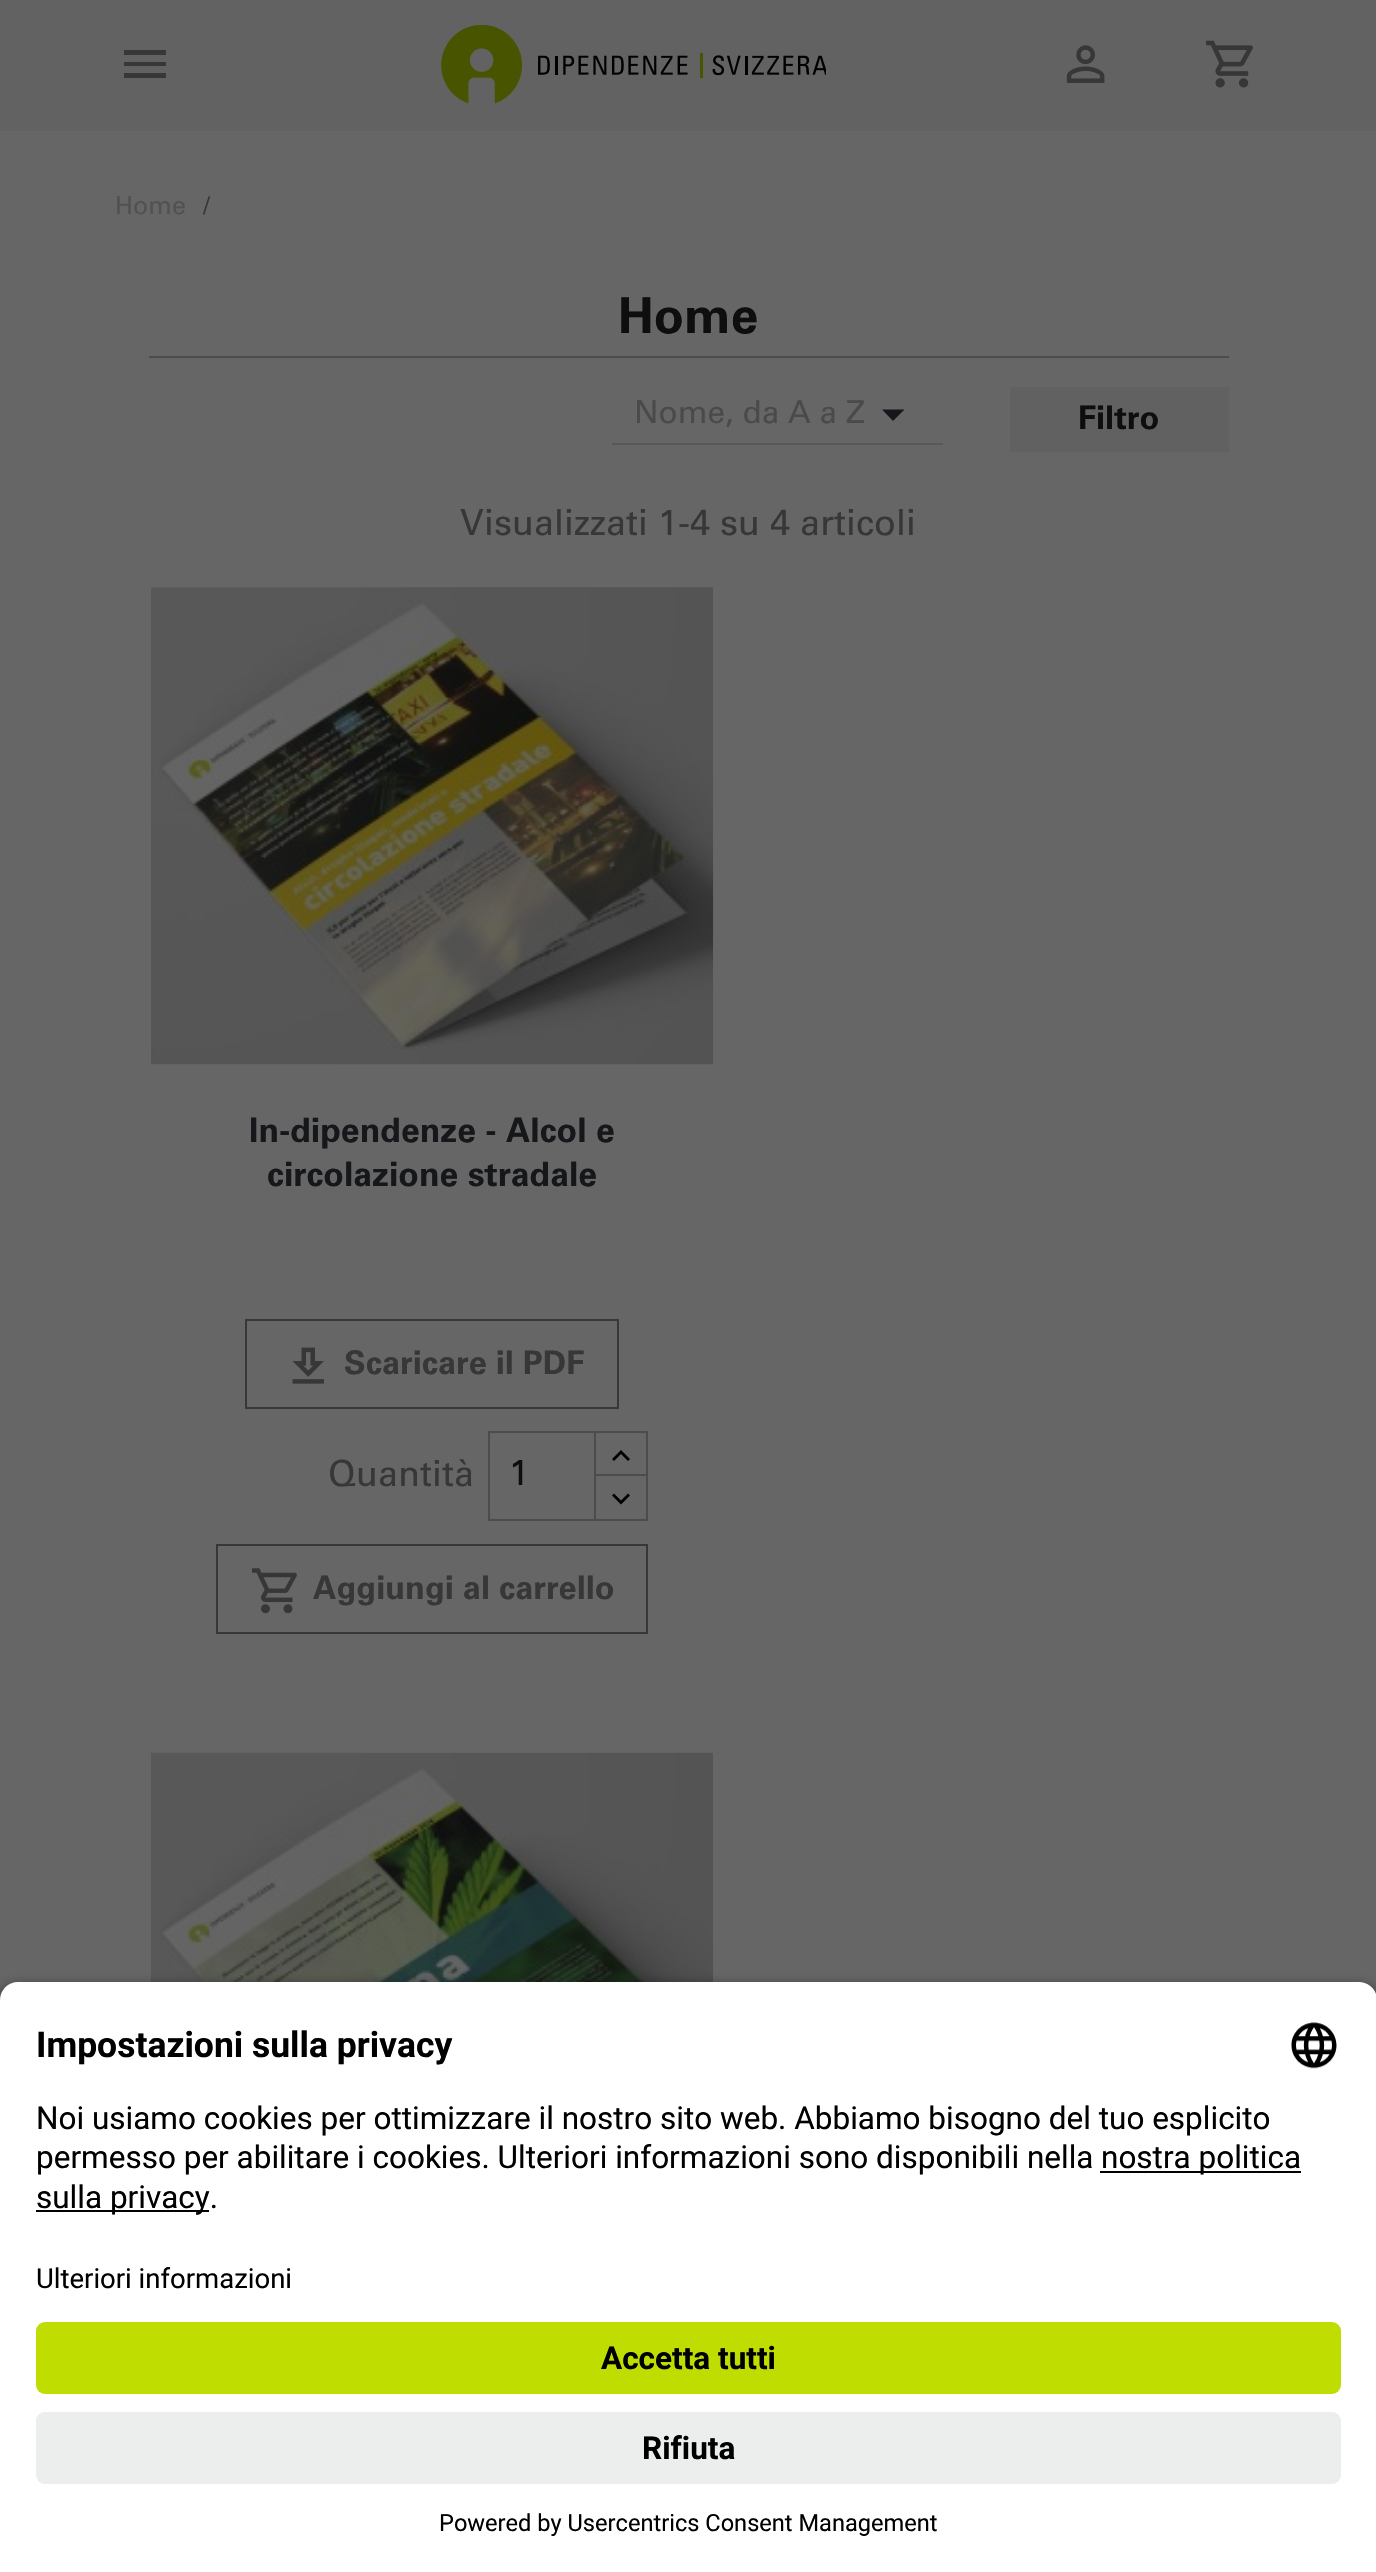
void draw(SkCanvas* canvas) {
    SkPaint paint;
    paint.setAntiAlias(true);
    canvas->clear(0xFF666666);
    paint.setColor(0xFF626262);
    canvas->drawRect(SkRect::MakeXYWH(0, 0, 1376, 131), paint);
    paint.setColor(0xFF373737);
    canvas->drawPath(SkPathBuilder().moveTo(124, 50).lineTo(166, 50).lineTo(166, 55).lineTo(124, 55).close().moveTo(124, 66).lineTo(124, 62).lineTo(166, 62).lineTo(166, 66).close().moveTo(124, 78).lineTo(124, 73).lineTo(166, 73).lineTo(166, 78).close().detach(), paint);
    canvas->drawImageRect(SkImages::DeferredFromEncodedData(SkData::MakeFromFileName("img1.png")), SkRect::MakeXYWH(441, 25, 385, 79), SkSamplingOptions());
    canvas->drawImageRect(SkImages::DeferredFromEncodedData(SkData::MakeFromFileName("img2.png")), SkRect::MakeXYWH(1066, 45, 39, 38), SkSamplingOptions());
    canvas->drawImageRect(SkImages::DeferredFromEncodedData(SkData::MakeFromFileName("img3.png")), SkRect::MakeXYWH(1206, 40, 47, 48), SkSamplingOptions());
    SkFont font1(fontMgr->matchFamilyStyle("Univers", SkFontStyle::Normal()), 25);
    font1.setSubpixel(true);
    paint.setColor(0xFF515151);
    canvas->drawString("Home", 115, 214, font1, paint);
    paint.setColor(0xFF373737);
    canvas->drawString("/", 203, 214, font1, paint);
    paint.setColor(0xFF4C4C4C);
    canvas->drawRect(SkRect::MakeXYWH(149, 356, 1080, 2), paint);
    SkFont font2(fontMgr->matchFamilyStyle("Univers", SkFontStyle::Bold()), 49.5f);
    font2.setSubpixel(true);
    paint.setColor(0xFF0E0E0E);
    canvas->drawString("Home", 618, 333, font2, paint);
    SkFont font3(fontMgr->matchFamilyStyle("Univers", SkFontStyle::Normal()), 31.5f);
    font3.setSubpixel(true);
    paint.setColor(0xFF4A4A4A);
    canvas->drawString("Nome, da A a Z", 634, 423, font3, paint);
    paint.setColor(0xFF16171A);
    canvas->drawPath(SkPathBuilder().moveTo(882, 409.5f).lineTo(904.5f, 409.5f).lineTo(893, 421).close().detach(), paint);
    paint.setColor(0xFF585858);
    canvas->drawRect(SkRect::MakeXYWH(612, 443, 331, 2), paint);
    paint.setColor(0xFF616161);
    canvas->drawRect(SkRect::MakeXYWH(1010, 387, 219, 65), paint);
    SkFont font4(fontMgr->matchFamilyStyle("Univers", SkFontStyle::Bold()), 32.5f);
    font4.setSubpixel(true);
    paint.setColor(0xFF0E0E0E);
    canvas->drawString("Filtro", 1078, 429, font4, paint);
    SkFont font5(fontMgr->matchFamilyStyle("Univers", SkFontStyle::Normal()), 36);
    font5.setSubpixel(true);
    paint.setColor(0xFF373737);
    canvas->drawString("Visualizzati 1-4 su 4 articoli", 460, 535, font5, paint);
    canvas->drawImageRect(SkImages::DeferredFromEncodedData(SkData::MakeFromFileName("img4.png")), SkRect::MakeXYWH(151, 587, 563, 478), SkSamplingOptions());
    SkFont font6(fontMgr->matchFamilyStyle("Univers", SkFontStyle::Bold()), 33.75f);
    font6.setSubpixel(true);
    paint.setColor(0xFF16171A);
    canvas->drawString("In-dipendenze - Alcol e", 249, 1142, font6, paint);
    canvas->drawString("circolazione stradale", 267, 1186, font6, paint);
    paint.setStyle(SkPaint::kStroke_Style);
    paint.setStrokeWidth(2);
    paint.setColor(0xFF373737);
    canvas->drawRect(SkRect::MakeXYWH(246, 1320, 372, 88), paint);
    canvas->drawImageRect(SkImages::DeferredFromEncodedData(SkData::MakeFromFileName("img5.png")), SkRect::MakeXYWH(292, 1347, 32, 37), SkSamplingOptions());
    paint.setStyle(SkPaint::kFill_Style);
    canvas->drawString("Scaricare il PDF", 344, 1374, font4, paint);
    canvas->drawString("Quantità", 328, 1486, font5, paint);
    paint.setStyle(SkPaint::kStroke_Style);
    paint.setColor(0xFF4C4C4C);
    canvas->drawRect(SkRect::MakeXYWH(595, 1432, 52, 45), paint);
    paint.setStyle(SkPaint::kFill_Style);
    paint.setColor(0xFF666666);
    canvas->drawRect(SkRect::MakeXYWH(596, 1476, 50, 2), paint);
    paint.setStyle(SkPaint::kStroke_Style);
    paint.setColor(0xFF4C4C4C);
    canvas->drawRect(SkRect::MakeXYWH(595, 1475, 52, 45), paint);
    canvas->drawRect(SkRect::MakeXYWH(489, 1432, 106, 88), paint);
    paint.setStyle(SkPaint::kFill_Style);
    paint.setColor(0xFF0E0E0E);
    canvas->drawString("1", 509, 1485, font5, paint);
    paint.setColor(0xFF000000);
    canvas->drawPath(SkPathBuilder().moveTo(621, 1450).lineTo(630, 1459).lineTo(628, 1461).lineTo(621, 1454).lineTo(614, 1461).lineTo(612, 1459).close().detach(), paint);
    canvas->drawPath(SkPathBuilder().moveTo(628, 1493.5f).lineTo(630, 1495.5f).lineTo(621, 1504.5f).lineTo(612, 1495.5f).lineTo(614, 1493.5f).lineTo(621, 1500.5f).close().detach(), paint);
    paint.setStyle(SkPaint::kStroke_Style);
    paint.setColor(0xFF373737);
    canvas->drawRect(SkRect::MakeXYWH(217, 1545, 430, 88), paint);
    canvas->drawImageRect(SkImages::DeferredFromEncodedData(SkData::MakeFromFileName("img6.png")), SkRect::MakeXYWH(251, 1568, 46, 46), SkSamplingOptions());
    paint.setStyle(SkPaint::kFill_Style);
    canvas->drawString("Aggiungi al carrello", 313, 1599, font4, paint);
    canvas->drawImageRect(SkImages::DeferredFromEncodedData(SkData::MakeFromFileName("img7.png")), SkRect::MakeXYWH(151, 1752, 563, 230), SkSamplingOptions());
    paint.setColor(0xCC000000);
    paint.setMaskFilter(SkMaskFilter::MakeBlur(kNormal_SkBlurStyle, 8));
    canvas->drawRoundRect(SkRect::MakeXYWH(0, 1989, 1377, 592), 18, 18, paint);
    paint.setMaskFilter(nullptr);
    paint.setColor(0xFFFFFFFF);
    canvas->drawPath(SkPathBuilder().moveTo(18, 1982).lineTo(1359, 1982).cubicTo(1369, 1982, 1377, 1990, 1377, 2000).lineTo(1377, 2264).lineTo(0, 2264).lineTo(0, 2000).cubicTo(0, 1990, 8, 1982, 18, 1982).close().detach(), paint);
    SkFont font7(fontMgr->matchFamilyStyle("Roboto", SkFontStyle::Bold()), 35.5f);
    font7.setSubpixel(true);
    paint.setColor(0xFF000000);
    canvas->drawString("Impostazioni sulla privacy", 36, 2057, font7, paint);
    canvas->drawImageRect(SkImages::DeferredFromEncodedData(SkData::MakeFromFileName("img8.png")), SkRect::MakeXYWH(1291, 2022, 46, 47), SkSamplingOptions());
    SkFont font8(fontMgr->matchFamilyStyle("Roboto", SkFontStyle::Normal()), 31.5f);
    font8.setSubpixel(true);
    canvas->drawString("Noi usiamo cookies per ottimizzare il nostro sito web. Abbiamo bisogno del tuo esplicito", 36, 2129, font8, paint);
    canvas->drawString("permesso per abilitare i cookies. Ulteriori informazioni sono disponibili nella", 36, 2168, font8, paint);
    canvas->drawRect(SkRect::MakeXYWH(1100, 2171, 201, 2), paint);
    canvas->drawString("nostra politica", 1101, 2168, font8, paint);
    canvas->drawRect(SkRect::MakeXYWH(36, 2210, 173, 2), paint);
    canvas->drawString("sulla privacy.", 36, 2208, font8, paint);
    paint.setColor(0xFFFFFFFF);
    canvas->drawRect(SkRect::MakeXYWH(0, 2264, 1376, 308), paint);
    SkFont font9(fontMgr->matchFamilyStyle("Roboto", SkFontStyle::Normal()), 27.5f);
    font9.setSubpixel(true);
    paint.setColor(0xFF000000);
    canvas->drawString("Ulteriori informazioni", 36, 2288, font9, paint);
    paint.setColor(0xFFBFDD00);
    canvas->drawRoundRect(SkRect::MakeXYWH(36, 2322, 1305, 72), 9, 9, paint);
    SkFont font10(fontMgr->matchFamilyStyle("Roboto", SkFontStyle::Bold()), 31.5f);
    font10.setSubpixel(true);
    paint.setColor(0xFF000000);
    canvas->drawString("Accetta tutti", 601, 2369, font10, paint);
    paint.setColor(0xFFECEDED);
    canvas->drawRoundRect(SkRect::MakeXYWH(36, 2412, 1305, 72), 9, 9, paint);
    paint.setColor(0xFF000000);
    canvas->drawString("Rifiuta", 642, 2459, font10, paint);
    SkFont font11(fontMgr->matchFamilyStyle("Roboto", SkFontStyle::Normal()), 23.6f);
    font11.setSubpixel(true);
    canvas->drawString("Powered by Usercentrics Consent Management", 439, 2531, font11, paint);
}
